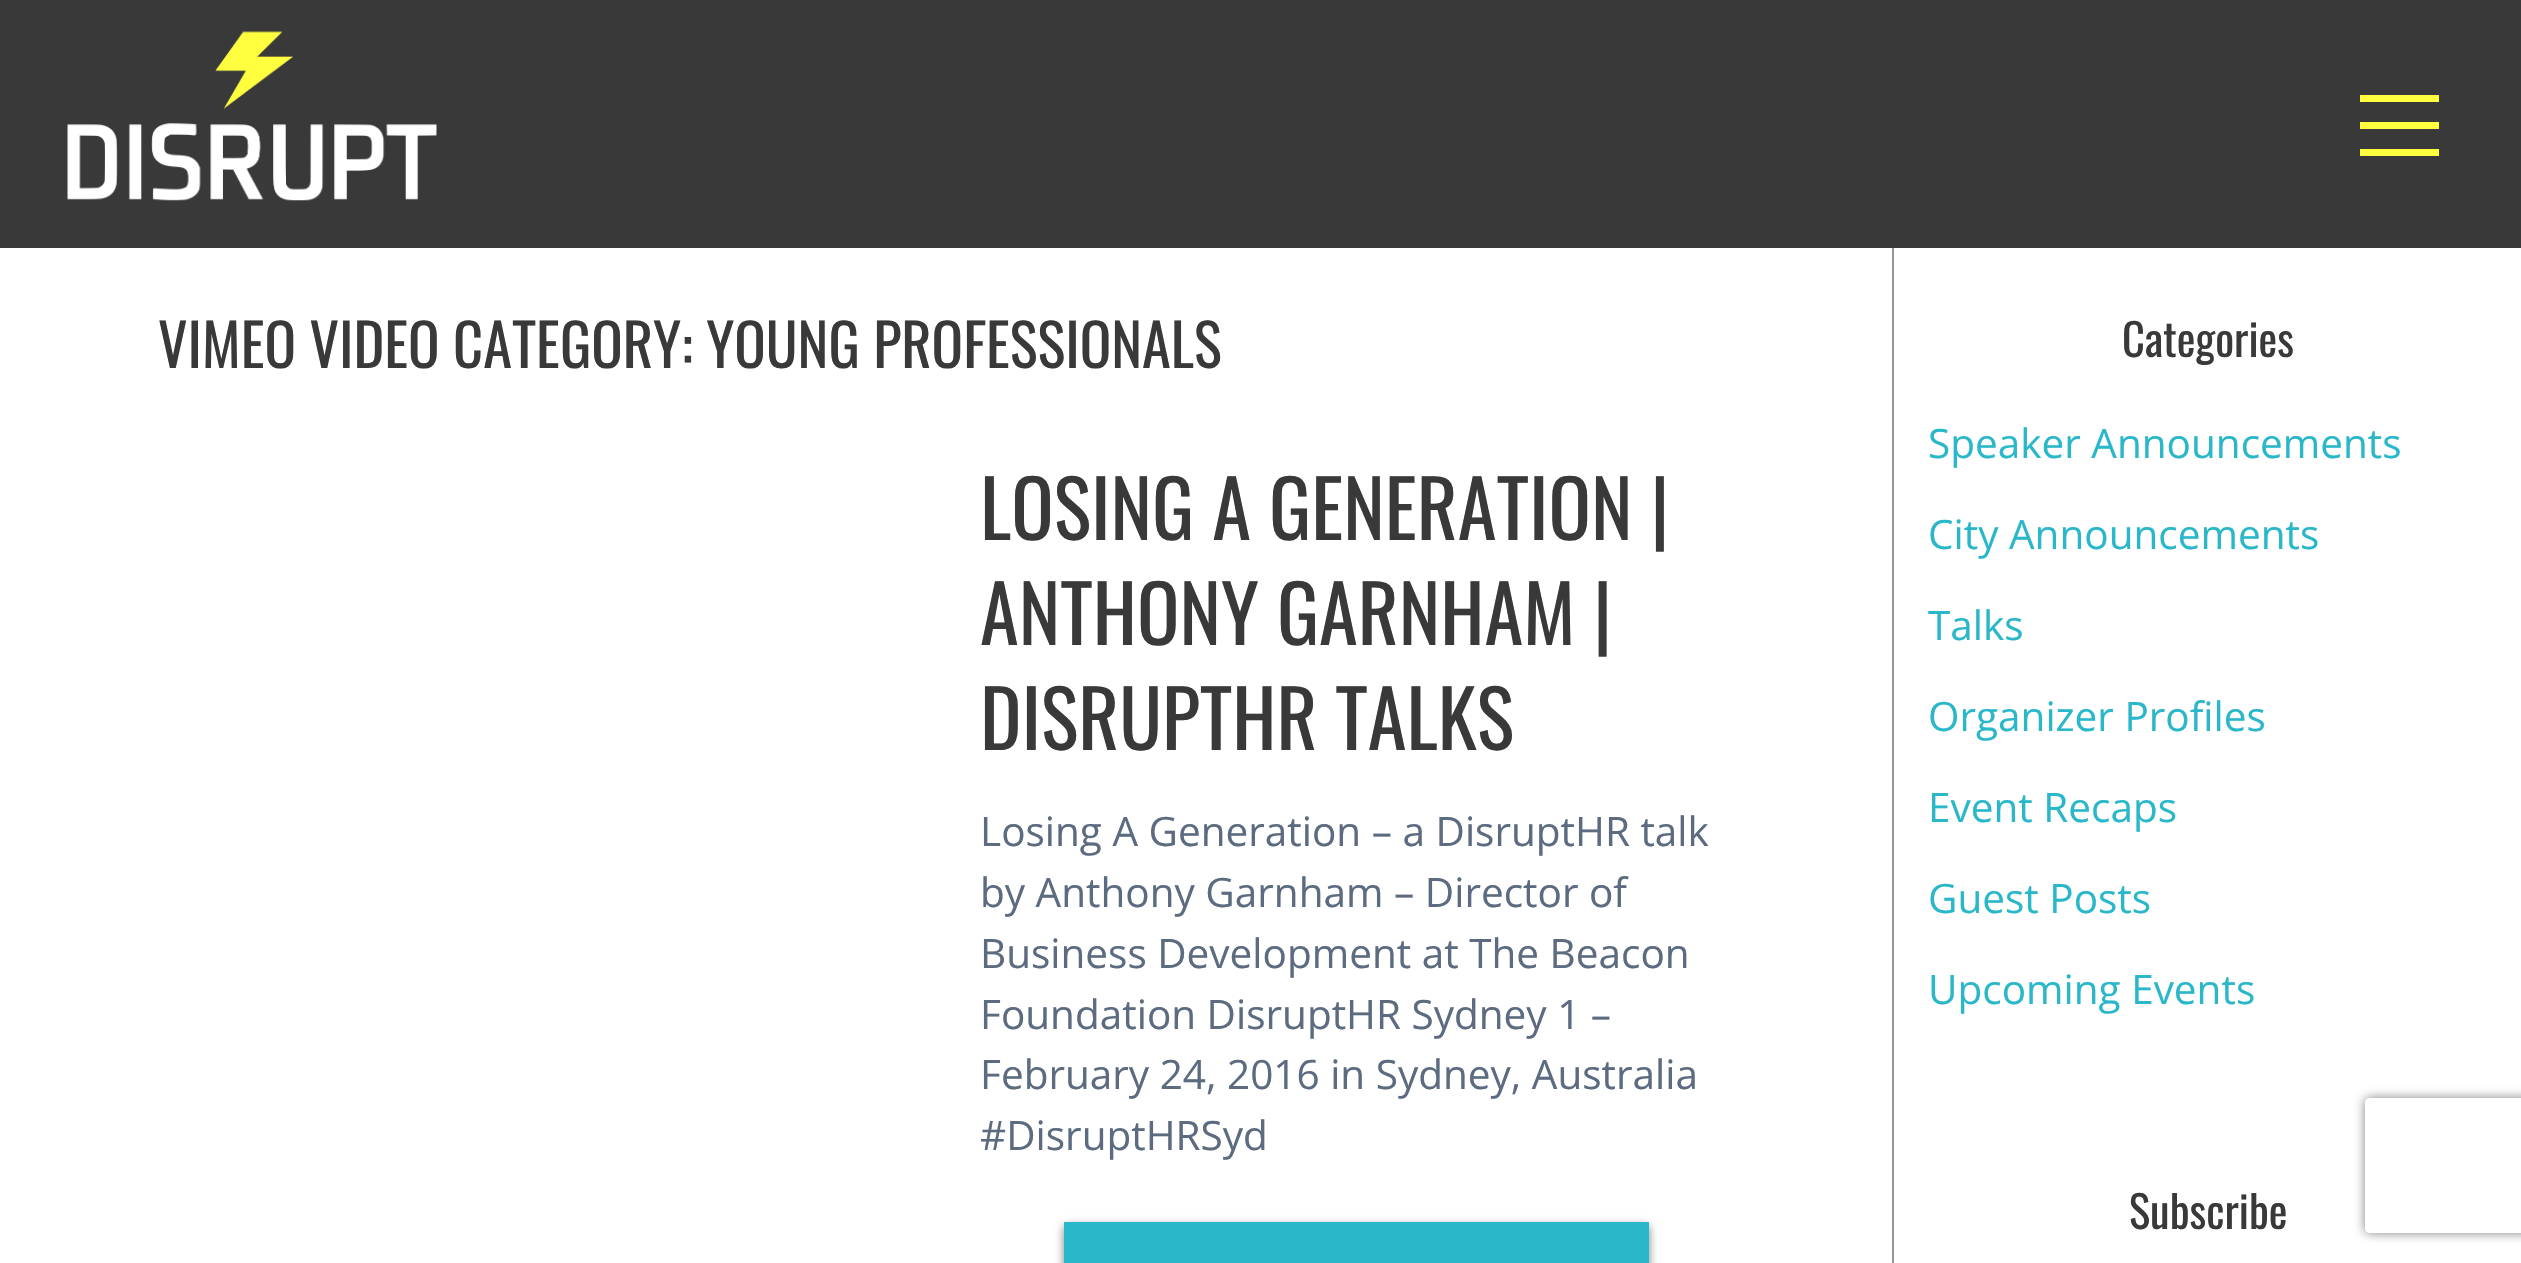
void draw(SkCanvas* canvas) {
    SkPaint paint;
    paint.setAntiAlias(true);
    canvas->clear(0xFFFFFFFF);
    paint.setColor(0xFF39393A);
    canvas->drawRect(SkRect::MakeXYWH(0, 0, 2521, 248), paint);
    canvas->drawImageRect(SkImages::DeferredFromEncodedData(SkData::MakeFromFileName("img1.png")), SkRect::MakeXYWH(67, 31, 370, 170), SkSamplingOptions());
    paint.setColor(0xFFFFFF40);
    canvas->drawRect(SkRect::MakeXYWH(2360, 122, 79, 7), paint);
    canvas->drawRect(SkRect::MakeXYWH(2360, 95, 79, 7), paint);
    canvas->drawRect(SkRect::MakeXYWH(2360, 149, 79, 7), paint);
    SkFont font1(fontMgr->matchFamilyStyle("Oswald", SkFontStyle::Normal()), 58.5f);
    font1.setSubpixel(true);
    paint.setColor(0xFF39393A);
    canvas->drawString("VIMEO VIDEO CATEGORY: YOUNG PROFESSIONALS", 158, 368, font1, paint);
    SkFont font2(fontMgr->matchFamilyStyle("Oswald", SkFontStyle::Normal()), 78.75f);
    font2.setSubpixel(true);
    canvas->drawString("LOSING A GENERATION |", 980, 540, font2, paint);
    canvas->drawString("ANTHONY GARNHAM |", 980, 645, font2, paint);
    canvas->drawString("DISRUPTHR TALKS", 980, 750, font2, paint);
    SkFont font3(fontMgr->matchFamilyStyle("Open Sans", SkFontStyle::Normal()), 40.5f);
    font3.setSubpixel(true);
    paint.setColor(0xFF5C6B80);
    canvas->drawString("Losing A Generation – a DisruptHR talk", 980, 846, font3, paint);
    canvas->drawString("by Anthony Garnham – Director of", 980, 907, font3, paint);
    canvas->drawString("Business Development at The Beacon", 980, 968, font3, paint);
    canvas->drawString("Foundation DisruptHR Sydney 1 –", 980, 1029, font3, paint);
    canvas->drawString("February 24, 2016 in Sydney, Australia", 980, 1089, font3, paint);
    canvas->drawString("#DisruptHRSyd", 980, 1150, font3, paint);
    paint.setColor(0x80000000);
    paint.setMaskFilter(SkMaskFilter::MakeBlur(kNormal_SkBlurStyle, 4.5f));
    canvas->drawRect(SkRect::MakeXYWH(1064, 1226, 585, 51), paint);
    paint.setMaskFilter(nullptr);
    paint.setColor(0xFF2AB7CA);
    canvas->drawRect(SkRect::MakeXYWH(1064, 1222, 585, 41), paint);
    paint.setColor(0xFF969696);
    canvas->drawRect(SkRect::MakeXYWH(1892, 248, 2, 1015), paint);
    SkFont font4(fontMgr->matchFamilyStyle("Oswald", SkFontStyle::Normal()), 44.5f);
    font4.setSubpixel(true);
    paint.setColor(0xFF39393A);
    canvas->drawString("Categories", 2122, 357, font4, paint);
    paint.setColor(0xFF2AB7CA);
    canvas->drawString("Speaker Announcements", 1928, 458, font3, paint);
    canvas->drawString("City Announcements", 1928, 549, font3, paint);
    canvas->drawString("Talks", 1928, 640, font3, paint);
    canvas->drawString("Organizer Profiles", 1928, 731, font3, paint);
    canvas->drawString("Event Recaps", 1928, 822, font3, paint);
    canvas->drawString("Guest Posts", 1928, 913, font3, paint);
    canvas->drawString("Upcoming Events", 1928, 1004, font3, paint);
    paint.setColor(0xFF39393A);
    canvas->drawString("Subscribe", 2129, 1229, font4, paint);
    canvas->save();
    canvas->clipPath(SkPathBuilder(SkPathFillType::kEvenOdd).moveTo(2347, 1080).lineTo(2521, 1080).lineTo(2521, 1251).lineTo(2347, 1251).close().moveTo(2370, 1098).lineTo(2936, 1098).cubicTo(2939, 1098, 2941, 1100, 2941, 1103).lineTo(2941, 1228).cubicTo(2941, 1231, 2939, 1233, 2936, 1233).lineTo(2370, 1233).cubicTo(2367, 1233, 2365, 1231, 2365, 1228).lineTo(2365, 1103).cubicTo(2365, 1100, 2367, 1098, 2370, 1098).close().detach(), true);
    paint.setColor(0xFF808080);
    paint.setMaskFilter(SkMaskFilter::MakeBlur(kNormal_SkBlurStyle, 5.5f));
    canvas->drawRoundRect(SkRect::MakeXYWH(2365, 1098, 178, 135), 5, 5, paint);
    paint.setMaskFilter(nullptr);
    canvas->restore();
}
